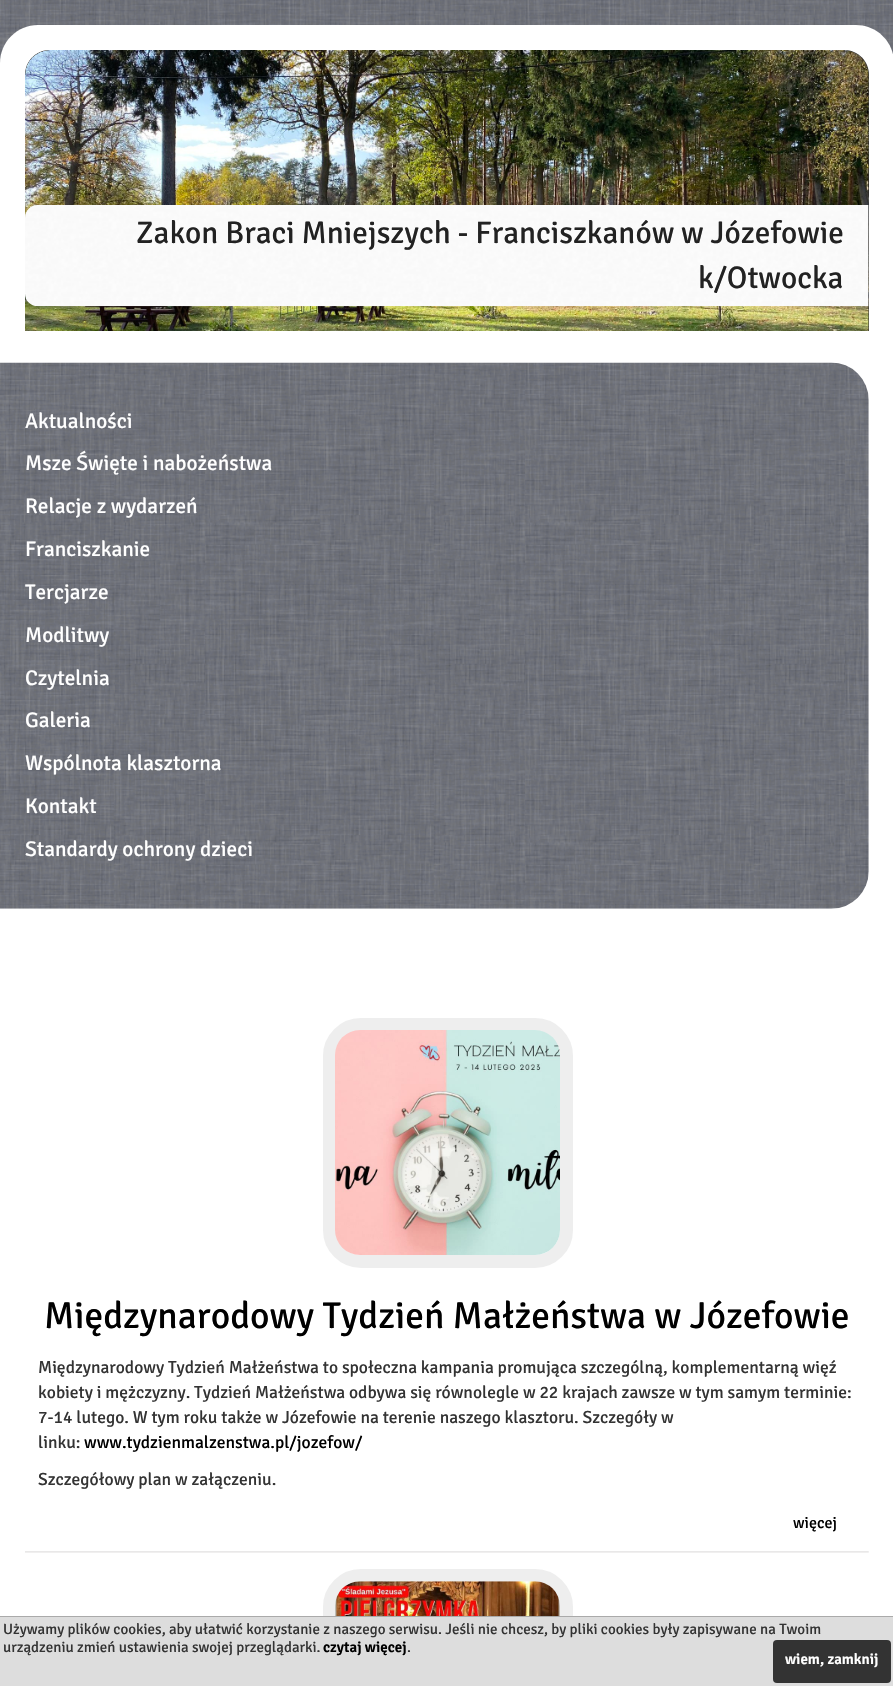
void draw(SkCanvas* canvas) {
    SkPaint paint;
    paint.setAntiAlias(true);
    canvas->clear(0xFFFFFFFF);
    canvas->drawImageRect(SkImages::DeferredFromEncodedData(SkData::MakeFromFileName("img1.png")), SkRect::MakeXYWH(0, 0, 893, 63), SkSamplingOptions());
    paint.setColor(0xFFFFFFFF);
    canvas->drawPath(SkPathBuilder().moveTo(38, 25).lineTo(856, 25).cubicTo(877, 25, 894, 42, 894, 63).lineTo(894, 344).lineTo(0, 344).lineTo(0, 63).cubicTo(0, 42, 17, 25, 38, 25).close().detach(), paint);
    paint.setColor(0xFF333333);
    canvas->drawPath(SkPathBuilder().moveTo(50, 50).lineTo(844, 50).cubicTo(858, 50, 869, 61, 869, 75).lineTo(869, 331).lineTo(25, 331).lineTo(25, 75).cubicTo(25, 61, 36, 50, 50, 50).close().detach(), paint);
    canvas->drawImageRect(SkImages::DeferredFromEncodedData(SkData::MakeFromFileName("img2.png")), SkRect::MakeXYWH(25, 50, 844, 281), SkSamplingOptions());
    canvas->drawImageRect(SkImages::DeferredFromEncodedData(SkData::MakeFromFileName("img3.png")), SkRect::MakeXYWH(25, 205, 844, 102), SkSamplingOptions());
    SkFont font1(fontMgr->matchFamilyStyle("Signika", SkFontStyle::Normal()), 31.25f);
    font1.setSubpixel(true);
    paint.setColor(0xFF222222);
    canvas->drawString("Zakon Braci Mniejszych - Franciszkanów w Józefowie", 136, 243, font1, paint);
    canvas->drawString("k/Otwocka", 698, 288, font1, paint);
    canvas->drawImageRect(SkImages::DeferredFromEncodedData(SkData::MakeFromFileName("img4.png")), SkRect::MakeXYWH(0, 362, 869, 547), SkSamplingOptions());
    SkFont font2(fontMgr->matchFamilyStyle("Signika", SkFontStyle::Normal()), 21.25f);
    font2.setSubpixel(true);
    paint.setColor(0xFFFFFFFF);
    canvas->drawString("Aktualności", 25, 428, font2, paint);
    canvas->drawString("Msze Święte i nabożeństwa", 25, 470, font2, paint);
    canvas->drawString("Relacje z wydarzeń", 25, 513, font2, paint);
    canvas->drawString("Franciszkanie", 25, 556, font2, paint);
    canvas->drawString("Tercjarze", 25, 599, font2, paint);
    canvas->drawString("Modlitwy", 25, 642, font2, paint);
    canvas->drawString("Czytelnia", 25, 685, font2, paint);
    canvas->drawString("Galeria", 25, 727, font2, paint);
    canvas->drawString("Wspólnota klasztorna", 25, 770, font2, paint);
    canvas->drawString("Kontakt", 25, 813, font2, paint);
    canvas->drawString("Standardy ochrony dzieci", 25, 856, font2, paint);
    canvas->drawImageRect(SkImages::DeferredFromEncodedData(SkData::MakeFromFileName("img5.png")), SkRect::MakeXYWH(25, 1551, 844, 2), SkSamplingOptions());
    paint.setStyle(SkPaint::kStroke_Style);
    paint.setStrokeWidth(13);
    paint.setColor(0xFFEEEEEE);
    canvas->drawRoundRect(SkRect::MakeXYWH(329.5f, 1024.5f, 237, 237), 31.5f, 31.5f, paint);
    canvas->drawImageRect(SkImages::DeferredFromEncodedData(SkData::MakeFromFileName("img6.png")), SkRect::MakeXYWH(335, 1030, 225, 225), SkSamplingOptions());
    SkFont font3(fontMgr->matchFamilyStyle("Signika", SkFontStyle::Normal()), 37.5f);
    font3.setSubpixel(true);
    paint.setStyle(SkPaint::kFill_Style);
    paint.setColor(0xFF000000);
    canvas->drawString("Międzynarodowy Tydzień Małżeństwa w Józefowie", 44, 1328, font3, paint);
    SkFont font4(fontMgr->matchFamilyStyle("Signika", SkFontStyle::Normal()), 17.5f);
    font4.setSubpixel(true);
    paint.setColor(0xFF333333);
    canvas->drawString("Międzynarodowy Tydzień Małżeństwa to społeczna kampania promująca szczególną, komplementarną więź", 38, 1373, font4, paint);
    canvas->drawString("kobiety i mężczyzny. Tydzień Małżeństwa odbywa się równolegle w 22 krajach zawsze w tym samym terminie:", 38, 1398, font4, paint);
    canvas->drawString("7-14 lutego. W tym roku także w Józefowie na terenie naszego klasztoru. Szczegóły w", 38, 1423, font4, paint);
    canvas->drawString("linku:", 38, 1448, font4, paint);
    paint.setColor(0xFF000000);
    canvas->drawString("www.tydzienmalzenstwa.pl/jozefow/", 84, 1448, font4, paint);
    paint.setColor(0xFF333333);
    canvas->drawString("Szczegółowy plan w załączeniu.", 38, 1485, font4, paint);
    SkFont font5(fontMgr->matchFamilyStyle("Signika", SkFontStyle::Normal()), 16);
    font5.setSubpixel(true);
    paint.setColor(0xFF000000);
    canvas->drawString("więcej", 793, 1528, font5, paint);
    paint.setStyle(SkPaint::kStroke_Style);
    paint.setColor(0xFFEEEEEE);
    canvas->drawRoundRect(SkRect::MakeXYWH(329.5f, 1575.5f, 237, 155), 31.5f, 31.5f, paint);
    canvas->drawImageRect(SkImages::DeferredFromEncodedData(SkData::MakeFromFileName("img7.png")), SkRect::MakeXYWH(335, 1581, 225, 35), SkSamplingOptions());
    paint.setStyle(SkPaint::kFill_Style);
    paint.setColor(0xFFDDDDDD);
    canvas->drawRect(SkRect::MakeXYWH(0, 1617, 893, 69), paint);
    paint.setColor(0xFFAAAAAA);
    canvas->drawRect(SkRect::MakeXYWH(0, 1616, 893, 1), paint);
    SkFont font6(fontMgr->matchFamilyStyle("Signika", SkFontStyle::Normal()), 15);
    font6.setSubpixel(true);
    paint.setColor(0xFF333333);
    canvas->drawString("Używamy plików cookies, aby ułatwić korzystanie z naszego serwisu. Jeśli nie chcesz, by pliki cookies były zapisywane na Twoim", 3, 1634, font6, paint);
    canvas->drawString("urządzeniu zmień ustawienia swojej przeglądarki.", 3, 1652, font6, paint);
    SkFont font7(fontMgr->matchFamilyStyle("Signika", SkFontStyle(600, SkFontStyle::kNormal_Width, SkFontStyle::kUpright_Slant)), 15);
    font7.setSubpixel(true);
    paint.setColor(0xFF000000);
    canvas->drawString("czytaj więcej", 323, 1652, font7, paint);
    paint.setColor(0xFF333333);
    canvas->drawString(".", 407, 1652, font6, paint);
    canvas->drawRoundRect(SkRect::MakeXYWH(773, 1640, 118, 43), 4, 4, paint);
    paint.setColor(0xFFFFFFFF);
    canvas->drawString("wiem, zamknij", 785, 1664, font7, paint);
}
